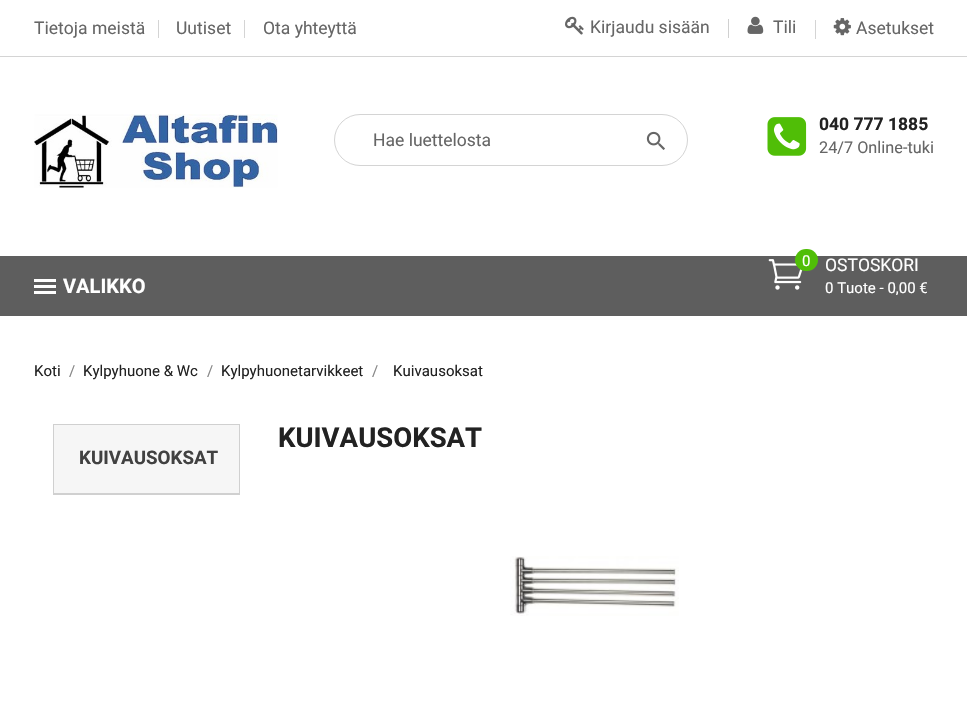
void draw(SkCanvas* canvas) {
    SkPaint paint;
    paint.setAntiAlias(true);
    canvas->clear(0xFFFFFFFF);
    paint.setColor(0xFFD4D4D4);
    canvas->drawRect(SkRect::MakeXYWH(0, 56, 967, 1), paint);
    canvas->drawRect(SkRect::MakeXYWH(158, 20, 1, 18), paint);
    SkFont font1(fontMgr->matchFamilyStyle("Heebo", SkFontStyle::Normal()), 17.5f);
    font1.setSubpixel(true);
    paint.setColor(0xFF666666);
    canvas->drawString("Tietoja meistä", 34, 34, font1, paint);
    paint.setColor(0xFFD4D4D4);
    canvas->drawRect(SkRect::MakeXYWH(244, 20, 1, 18), paint);
    paint.setColor(0xFF666666);
    canvas->drawString("Uutiset", 176, 34, font1, paint);
    canvas->drawString("Ota yhteyttä", 263, 34, font1, paint);
    canvas->drawImageRect(SkImages::DeferredFromEncodedData(SkData::MakeFromFileName("img1.png")), SkRect::MakeXYWH(565, 16, 19, 19), SkSamplingOptions());
    canvas->drawString("Kirjaudu sisään", 590, 33, font1, paint);
    paint.setColor(0xFFD0D0D0);
    canvas->drawRect(SkRect::MakeXYWH(728, 19, 1, 19), paint);
    canvas->drawImageRect(SkImages::DeferredFromEncodedData(SkData::MakeFromFileName("img2.png")), SkRect::MakeXYWH(747, 16, 17, 18), SkSamplingOptions());
    paint.setColor(0xFF666666);
    canvas->drawString("Tili", 773, 33, font1, paint);
    paint.setColor(0xFFD4D4D4);
    canvas->drawRect(SkRect::MakeXYWH(815, 20, 1, 19), paint);
    canvas->drawImageRect(SkImages::DeferredFromEncodedData(SkData::MakeFromFileName("img3.png")), SkRect::MakeXYWH(833, 18, 18, 18), SkSamplingOptions());
    paint.setColor(0xFF666666);
    canvas->drawString("Asetukset", 856, 34, font1, paint);
    paint.setColor(0xFF5E5E5E);
    canvas->drawRect(SkRect::MakeXYWH(0, 256, 967, 60), paint);
    paint.setColor(0xFFFFFFFF);
    canvas->drawRect(SkRect::MakeXYWH(34, 279, 22, 3), paint);
    canvas->drawRect(SkRect::MakeXYWH(34, 285, 22, 3), paint);
    canvas->drawRect(SkRect::MakeXYWH(34, 291, 22, 3), paint);
    SkFont font2(fontMgr->matchFamilyStyle("Heebo", SkFontStyle::Bold()), 20);
    font2.setSubpixel(true);
    canvas->drawString("VALIKKO", 63, 293, font2, paint);
    canvas->drawImageRect(SkImages::DeferredFromEncodedData(SkData::MakeFromFileName("img4.png")), SkRect::MakeXYWH(34, 114, 244, 74), SkSamplingOptions());
    paint.setStyle(SkPaint::kStroke_Style);
    paint.setStrokeWidth(1);
    paint.setColor(0xFFD4D4D4);
    canvas->drawRoundRect(SkRect::MakeXYWH(334.5f, 114.5f, 353, 51), 25.5f, 25.5f, paint);
    paint.setStyle(SkPaint::kFill_Style);
    paint.setColor(0xFF666666);
    canvas->drawString("Hae luettelosta", 373, 146, font1, paint);
    canvas->drawImageRect(SkImages::DeferredFromEncodedData(SkData::MakeFromFileName("img5.png")), SkRect::MakeXYWH(646, 131, 19, 19), SkSamplingOptions());
    canvas->drawImageRect(SkImages::DeferredFromEncodedData(SkData::MakeFromFileName("img6.png")), SkRect::MakeXYWH(767, 117, 40, 39), SkSamplingOptions());
    SkFont font3(fontMgr->matchFamilyStyle("Heebo", SkFontStyle::Bold()), 17.5f);
    font3.setSubpixel(true);
    paint.setColor(0xFF222222);
    canvas->drawString("040 777 1885", 819, 130, font3, paint);
    SkFont font4(fontMgr->matchFamilyStyle("Heebo", SkFontStyle::Normal()), 16.25f);
    font4.setSubpixel(true);
    paint.setColor(0xFF666666);
    canvas->drawString("24/7 Online-tuki", 819, 153, font4, paint);
    canvas->drawImageRect(SkImages::DeferredFromEncodedData(SkData::MakeFromFileName("img7.png")), SkRect::MakeXYWH(768, 259, 35, 31), SkSamplingOptions());
    paint.setColor(0xFF50BE07);
    canvas->drawRoundRect(SkRect::MakeXYWH(795, 249, 23, 22), 11, 11, paint);
    SkFont font5(fontMgr->matchFamilyStyle("Heebo", SkFontStyle::Normal()), 15);
    font5.setSubpixel(true);
    paint.setColor(0xFFFFFFFF);
    canvas->drawString("0", 802, 266, font5, paint);
    canvas->drawString("OSTOSKORI", 825, 271, font1, paint);
    canvas->drawString("0 Tuote - 0,00 €", 825, 293, font5, paint);
    paint.setColor(0xFF222222);
    canvas->drawString("Koti", 34, 376, font5, paint);
    paint.setColor(0xFF878787);
    canvas->drawString("/", 69, 376, font5, paint);
    paint.setColor(0xFF222222);
    canvas->drawString("Kylpyhuone & Wc", 83, 376, font5, paint);
    paint.setColor(0xFF878787);
    canvas->drawString("/", 207, 376, font5, paint);
    paint.setColor(0xFF222222);
    canvas->drawString("Kylpyhuonetarvikkeet", 221, 376, font5, paint);
    paint.setColor(0xFF878787);
    canvas->drawString("/", 372, 376, font5, paint);
    paint.setColor(0xFF222222);
    canvas->drawString("Kuivausoksat", 393, 376, font5, paint);
    SkFont font6(fontMgr->matchFamilyStyle("Heebo", SkFontStyle::Bold()), 27.5f);
    font6.setSubpixel(true);
    canvas->drawString("KUIVAUSOKSAT", 278, 447, font6, paint);
    canvas->drawImageRect(SkImages::DeferredFromEncodedData(SkData::MakeFromFileName("img8.png")), SkRect::MakeXYWH(510, 556, 169, 60), SkSamplingOptions());
    paint.setStyle(SkPaint::kStroke_Style);
    paint.setColor(0xFFD0D0D0);
    canvas->drawRect(SkRect::MakeXYWH(53.5f, 424.5f, 186, 70), paint);
    paint.setStyle(SkPaint::kFill_Style);
    paint.setColor(0xFFF6F6F6);
    canvas->drawRect(SkRect::MakeXYWH(54, 425, 185, 68), paint);
    paint.setColor(0xFFD0D0D0);
    canvas->drawRect(SkRect::MakeXYWH(54, 493, 185, 1), paint);
    SkFont font7(fontMgr->matchFamilyStyle("Heebo", SkFontStyle::Bold()), 18.75f);
    font7.setSubpixel(true);
    paint.setColor(0xFF414141);
    canvas->drawString("KUIVAUSOKSAT", 79, 464, font7, paint);
}
